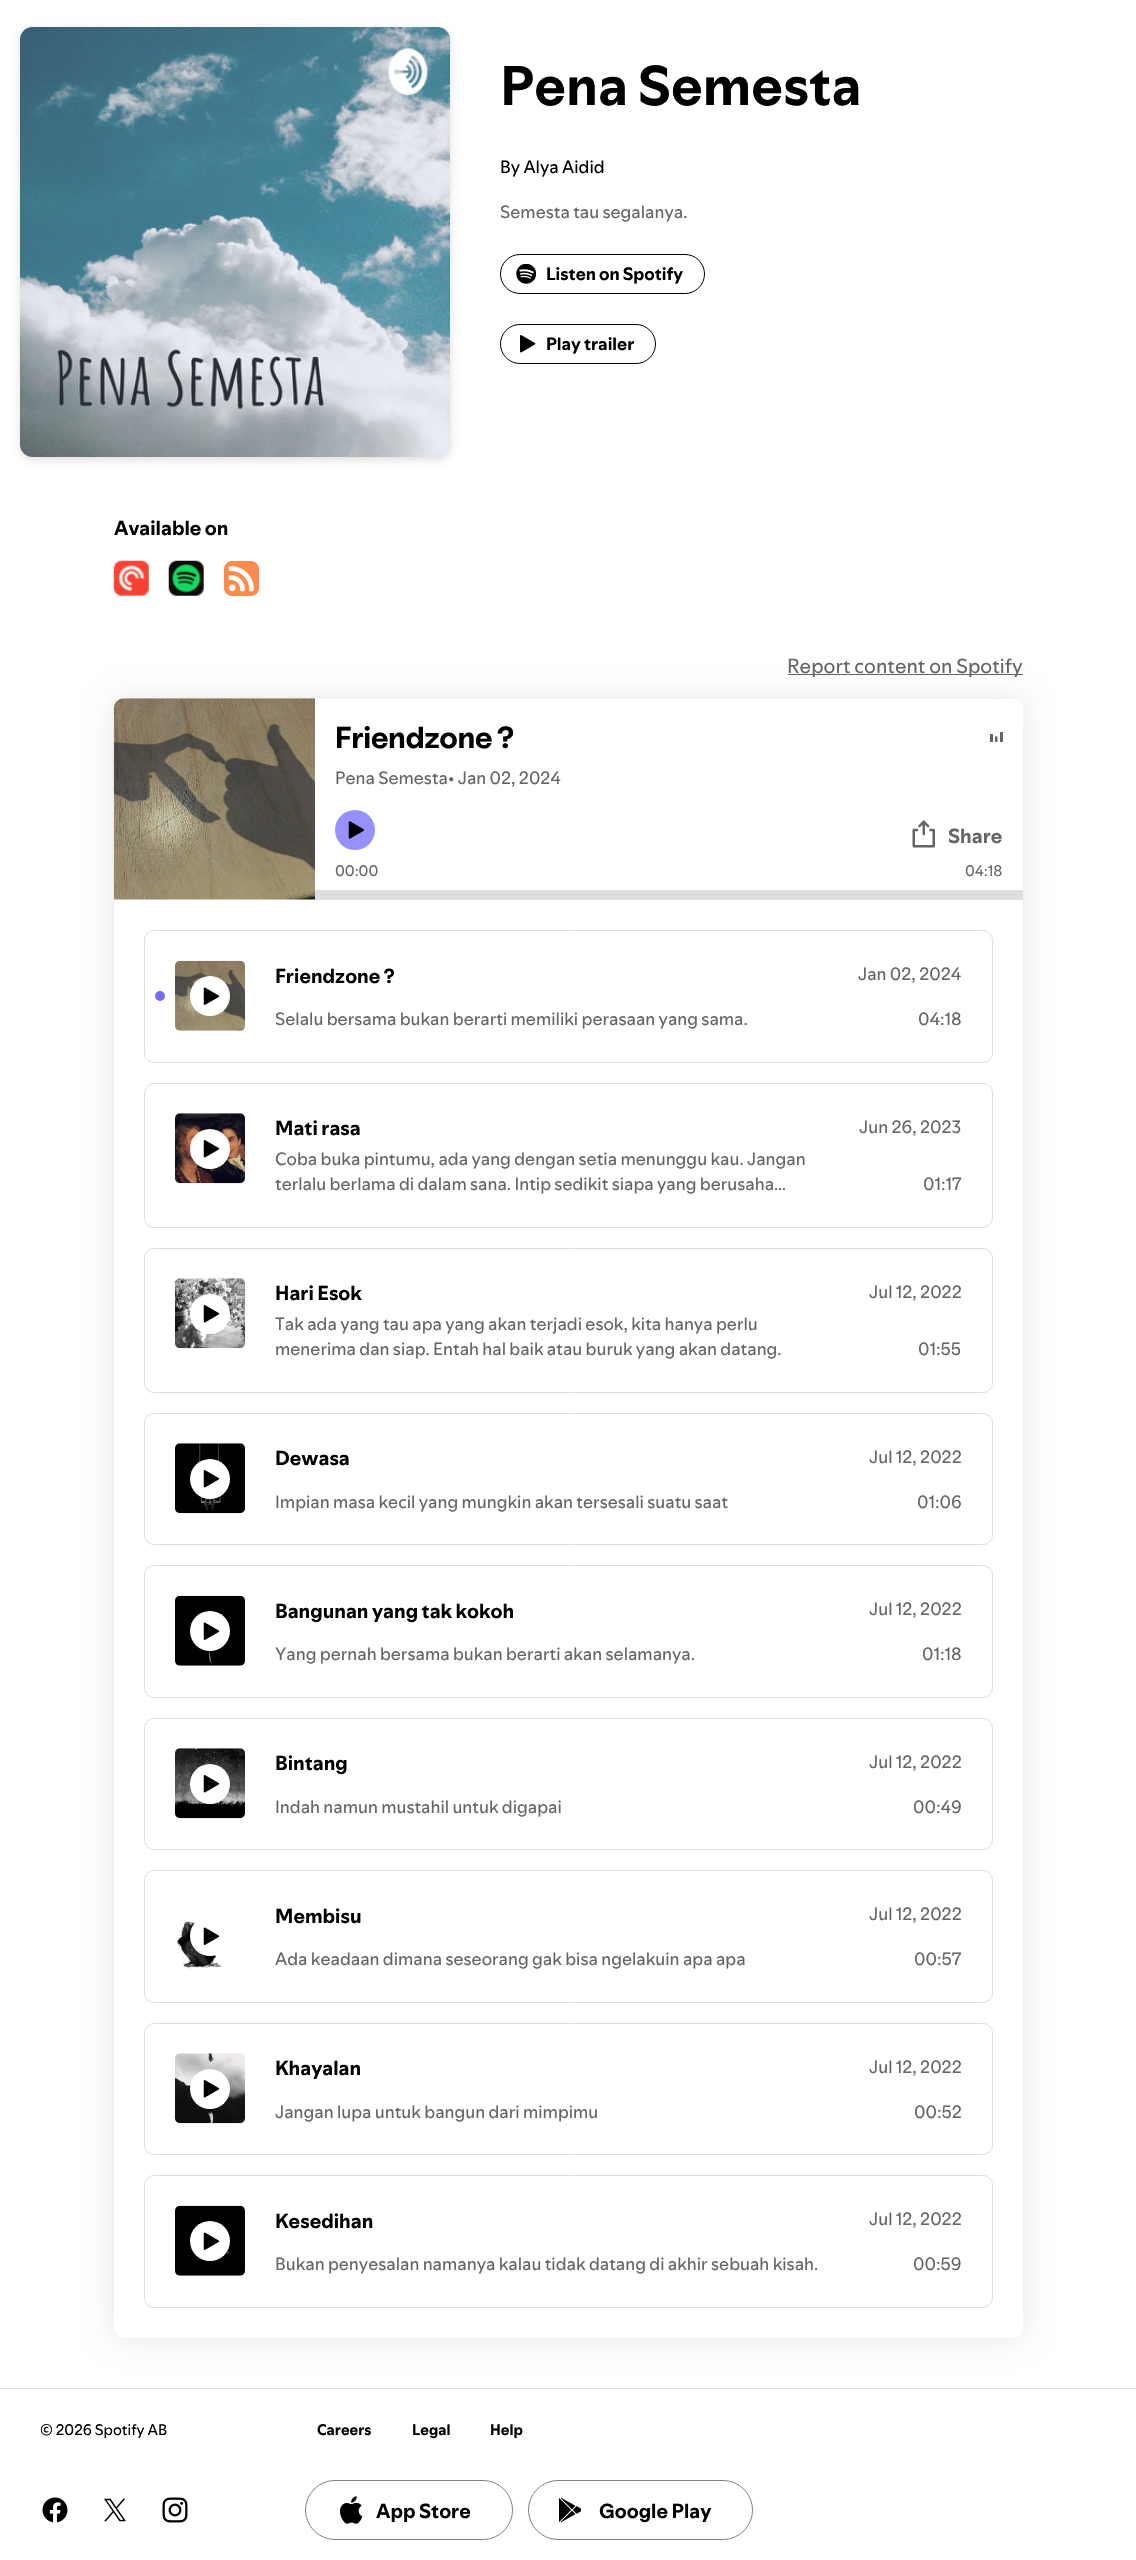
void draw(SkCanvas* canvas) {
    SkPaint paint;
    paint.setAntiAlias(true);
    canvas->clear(0xFFFFFFFF);
    paint.setColor(0xFFDEDEDE);
    paint.setMaskFilter(SkMaskFilter::MakeBlur(kNormal_SkBlurStyle, 4.5f));
    canvas->drawRoundRect(SkRect::MakeXYWH(20, 30, 430, 430), 13, 13, paint);
    paint.setMaskFilter(nullptr);
    canvas->drawImageRect(SkImages::DeferredFromEncodedData(SkData::MakeFromFileName("img1.png")), SkRect::MakeXYWH(20, 27, 430, 430), SkSamplingOptions());
    SkFont font1(fontMgr->matchFamilyStyle("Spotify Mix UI", SkFontStyle::Bold()), 55);
    font1.setSubpixel(true);
    paint.setColor(0xFF000000);
    canvas->drawString("Pena Semesta", 500, 105, font1, paint);
    SkFont font2(fontMgr->matchFamilyStyle("Spotify Mix UI", SkFontStyle::Normal()), 17.5f);
    font2.setSubpixel(true);
    canvas->drawString("By Alya Aidid", 500, 173, font2, paint);
    paint.setColor(0xFF656565);
    canvas->drawString("Semesta tau segalanya.", 500, 218, font2, paint);
    paint.setStyle(SkPaint::kStroke_Style);
    paint.setStrokeWidth(1);
    paint.setColor(0xFF000000);
    canvas->drawRoundRect(SkRect::MakeXYWH(500.5f, 254.5f, 204, 39), 19.5f, 19.5f, paint);
    canvas->drawImageRect(SkImages::DeferredFromEncodedData(SkData::MakeFromFileName("img2.png")), SkRect::MakeXYWH(516, 264, 20, 20), SkSamplingOptions());
    SkFont font3(fontMgr->matchFamilyStyle("Spotify Mix UI", SkFontStyle::Bold()), 17.5f);
    font3.setSubpixel(true);
    paint.setStyle(SkPaint::kFill_Style);
    canvas->drawString("Listen on Spotify", 546, 280, font3, paint);
    paint.setStyle(SkPaint::kStroke_Style);
    canvas->drawRoundRect(SkRect::MakeXYWH(500.5f, 324.5f, 155, 39), 19.5f, 19.5f, paint);
    canvas->drawImageRect(SkImages::DeferredFromEncodedData(SkData::MakeFromFileName("img3.png")), SkRect::MakeXYWH(520, 335, 16, 18), SkSamplingOptions());
    paint.setStyle(SkPaint::kFill_Style);
    canvas->drawString("Play trailer", 546, 350, font3, paint);
    SkFont font4(fontMgr->matchFamilyStyle("Spotify Mix UI", SkFontStyle::Bold()), 20);
    font4.setSubpixel(true);
    canvas->drawString("Available on", 114, 535, font4, paint);
    canvas->drawImageRect(SkImages::DeferredFromEncodedData(SkData::MakeFromFileName("img4.png")), SkRect::MakeXYWH(113, 560, 36, 36), SkSamplingOptions());
    canvas->drawImageRect(SkImages::DeferredFromEncodedData(SkData::MakeFromFileName("img5.png")), SkRect::MakeXYWH(168, 560, 36, 36), SkSamplingOptions());
    canvas->drawImageRect(SkImages::DeferredFromEncodedData(SkData::MakeFromFileName("img6.png")), SkRect::MakeXYWH(224, 561, 35, 35), SkSamplingOptions());
    paint.setColor(0xFF656565);
    canvas->drawRect(SkRect::MakeXYWH(788, 674, 235, 1), paint);
    SkFont font5(fontMgr->matchFamilyStyle("Spotify Mix UI", SkFontStyle::Normal()), 20);
    font5.setSubpixel(true);
    canvas->drawString("Report content on Spotify", 787, 673, font5, paint);
    canvas->save();
    canvas->clipPath(SkPathBuilder(SkPathFillType::kEvenOdd).moveTo(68, 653).lineTo(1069, 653).lineTo(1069, 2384).lineTo(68, 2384).close().moveTo(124, 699).lineTo(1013, 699).cubicTo(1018.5f, 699, 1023, 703.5f, 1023, 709).lineTo(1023, 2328).cubicTo(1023, 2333.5f, 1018.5f, 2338, 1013, 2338).lineTo(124, 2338).cubicTo(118.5f, 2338, 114, 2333.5f, 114, 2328).lineTo(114, 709).cubicTo(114, 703.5f, 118.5f, 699, 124, 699).close().detach(), true);
    paint.setColor(0x1A000000);
    paint.setMaskFilter(SkMaskFilter::MakeBlur(kNormal_SkBlurStyle, 15));
    canvas->drawRoundRect(SkRect::MakeXYWH(114, 699, 909, 1639), 10, 10, paint);
    paint.setMaskFilter(nullptr);
    canvas->restore();
    paint.setColor(0xFFFFFFFF);
    canvas->drawPath(SkPathBuilder().moveTo(124, 699).lineTo(1013, 699).cubicTo(1018.5f, 699, 1023, 703.5f, 1023, 709).lineTo(1023, 900).lineTo(114, 900).lineTo(114, 709).cubicTo(114, 703.5f, 118.5f, 699, 124, 699).close().detach(), paint);
    canvas->drawImageRect(SkImages::DeferredFromEncodedData(SkData::MakeFromFileName("img7.png")), SkRect::MakeXYWH(113, 698, 202, 202), SkSamplingOptions());
    SkFont font6(fontMgr->matchFamilyStyle("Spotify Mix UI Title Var", SkFontStyle::Bold()), 30);
    font6.setSubpixel(true);
    paint.setColor(0xFF000000);
    canvas->drawString("Friendzone ?", 335, 748, font6, paint);
    canvas->drawImageRect(SkImages::DeferredFromEncodedData(SkData::MakeFromFileName("img8.png")), SkRect::MakeXYWH(990, 732, 13, 10), SkSamplingOptions());
    paint.setColor(0xFF656565);
    canvas->drawString("Pena Semesta• Jan 02, 2024", 335, 784, font2, paint);
    paint.setColor(0xFF9691FF);
    canvas->drawCircle(355, 830, 20, paint);
    canvas->drawImageRect(SkImages::DeferredFromEncodedData(SkData::MakeFromFileName("img9.png")), SkRect::MakeXYWH(348, 821, 17, 18), SkSamplingOptions());
    canvas->drawImageRect(SkImages::DeferredFromEncodedData(SkData::MakeFromFileName("img10.png")), SkRect::MakeXYWH(912, 820, 23, 28), SkSamplingOptions());
    paint.setColor(0xFF656565);
    canvas->drawString("Share", 948, 843, font4, paint);
    SkFont font7(fontMgr->matchFamilyStyle("Spotify Mix UI", SkFontStyle::Normal()), 15);
    font7.setSubpixel(true);
    canvas->drawString("00:00", 335, 876, font7, paint);
    canvas->drawString("04:18", 965, 876, font7, paint);
    paint.setColor(0xFFDEDEDE);
    canvas->drawRect(SkRect::MakeXYWH(315, 890, 708, 10), paint);
    paint.setStyle(SkPaint::kStroke_Style);
    canvas->drawRoundRect(SkRect::MakeXYWH(144.5f, 930.5f, 848, 132), 9.5f, 9.5f, paint);
    paint.setStyle(SkPaint::kFill_Style);
    paint.setColor(0xFF746DFF);
    canvas->drawCircle(160, 996, 5, paint);
    canvas->drawImageRect(SkImages::DeferredFromEncodedData(SkData::MakeFromFileName("img11.png")), SkRect::MakeXYWH(175, 960, 70, 71), SkSamplingOptions());
    paint.setColor(0xFFFFFFFF);
    canvas->drawCircle(210, 996, 20, paint);
    canvas->drawImageRect(SkImages::DeferredFromEncodedData(SkData::MakeFromFileName("img12.png")), SkRect::MakeXYWH(203, 987, 17, 18), SkSamplingOptions());
    paint.setColor(0xFF000000);
    canvas->drawString("Friendzone ?", 275, 983, font4, paint);
    paint.setColor(0xFF656565);
    canvas->drawString("Selalu bersama bukan berarti memiliki perasaan yang sama.", 275, 1025, font2, paint);
    canvas->drawString("Jan 02, 2024", 858, 980, font2, paint);
    canvas->drawString("04:18", 918, 1025, font2, paint);
    paint.setStyle(SkPaint::kStroke_Style);
    paint.setColor(0xFFDEDEDE);
    canvas->drawRoundRect(SkRect::MakeXYWH(144.5f, 1083.5f, 848, 144), 9.5f, 9.5f, paint);
    canvas->drawImageRect(SkImages::DeferredFromEncodedData(SkData::MakeFromFileName("img13.png")), SkRect::MakeXYWH(175, 1113, 70, 71), SkSamplingOptions());
    paint.setStyle(SkPaint::kFill_Style);
    paint.setColor(0xFFFFFFFF);
    canvas->drawCircle(210, 1149, 20, paint);
    canvas->drawImageRect(SkImages::DeferredFromEncodedData(SkData::MakeFromFileName("img14.png")), SkRect::MakeXYWH(203, 1140, 17, 18), SkSamplingOptions());
    paint.setColor(0xFF000000);
    canvas->drawString("Mati rasa", 275, 1135, font4, paint);
    paint.setColor(0xFF656565);
    canvas->drawString("Coba buka pintumu, ada yang dengan setia menunggu kau. Jangan", 275, 1165, font2, paint);
    canvas->drawString("terlalu berlama di dalam sana. Intip sedikit siapa yang berusaha…", 275, 1190, font2, paint);
    canvas->drawString("Jun 26, 2023", 859, 1133, font2, paint);
    canvas->drawString("01:17", 923, 1190, font2, paint);
    paint.setStyle(SkPaint::kStroke_Style);
    paint.setColor(0xFFDEDEDE);
    canvas->drawRoundRect(SkRect::MakeXYWH(144.5f, 1248.5f, 848, 144), 9.5f, 9.5f, paint);
    canvas->drawImageRect(SkImages::DeferredFromEncodedData(SkData::MakeFromFileName("img15.png")), SkRect::MakeXYWH(175, 1278, 70, 71), SkSamplingOptions());
    paint.setStyle(SkPaint::kFill_Style);
    paint.setColor(0xFFFFFFFF);
    canvas->drawCircle(210, 1314, 20, paint);
    canvas->drawImageRect(SkImages::DeferredFromEncodedData(SkData::MakeFromFileName("img14.png")), SkRect::MakeXYWH(203, 1305, 17, 18), SkSamplingOptions());
    paint.setColor(0xFF000000);
    canvas->drawString("Hari Esok", 275, 1300, font4, paint);
    paint.setColor(0xFF656565);
    canvas->drawString("Tak ada yang tau apa yang akan terjadi esok, kita hanya perlu", 275, 1330, font2, paint);
    canvas->drawString("menerima dan siap. Entah hal baik atau buruk yang akan datang.", 275, 1355, font2, paint);
    canvas->drawString("Jul 12, 2022", 869, 1298, font2, paint);
    canvas->drawString("01:55", 918, 1355, font2, paint);
    paint.setStyle(SkPaint::kStroke_Style);
    paint.setColor(0xFFDEDEDE);
    canvas->drawRoundRect(SkRect::MakeXYWH(144.5f, 1413.5f, 848, 131), 9.5f, 9.5f, paint);
    canvas->drawImageRect(SkImages::DeferredFromEncodedData(SkData::MakeFromFileName("img16.png")), SkRect::MakeXYWH(175, 1443, 70, 71), SkSamplingOptions());
    paint.setStyle(SkPaint::kFill_Style);
    paint.setColor(0xFFFFFFFF);
    canvas->drawCircle(210, 1479, 20, paint);
    canvas->drawImageRect(SkImages::DeferredFromEncodedData(SkData::MakeFromFileName("img14.png")), SkRect::MakeXYWH(203, 1470, 17, 18), SkSamplingOptions());
    paint.setColor(0xFF000000);
    canvas->drawString("Dewasa", 275, 1465, font4, paint);
    paint.setColor(0xFF656565);
    canvas->drawString("Impian masa kecil yang mungkin akan tersesali suatu saat", 275, 1508, font2, paint);
    canvas->drawString("Jul 12, 2022", 869, 1463, font2, paint);
    canvas->drawString("01:06", 917, 1508, font2, paint);
    paint.setStyle(SkPaint::kStroke_Style);
    paint.setColor(0xFFDEDEDE);
    canvas->drawRoundRect(SkRect::MakeXYWH(144.5f, 1565.5f, 848, 132), 9.5f, 9.5f, paint);
    canvas->drawImageRect(SkImages::DeferredFromEncodedData(SkData::MakeFromFileName("img17.png")), SkRect::MakeXYWH(175, 1595, 70, 71), SkSamplingOptions());
    paint.setStyle(SkPaint::kFill_Style);
    paint.setColor(0xFFFFFFFF);
    canvas->drawCircle(210, 1631, 20, paint);
    canvas->drawImageRect(SkImages::DeferredFromEncodedData(SkData::MakeFromFileName("img12.png")), SkRect::MakeXYWH(203, 1622, 17, 18), SkSamplingOptions());
    paint.setColor(0xFF000000);
    canvas->drawString("Bangunan yang tak kokoh", 275, 1618, font4, paint);
    paint.setColor(0xFF656565);
    canvas->drawString("Yang pernah bersama bukan berarti akan selamanya.", 275, 1660, font2, paint);
    canvas->drawString("Jul 12, 2022", 869, 1615, font2, paint);
    canvas->drawString("01:18", 922, 1660, font2, paint);
    paint.setStyle(SkPaint::kStroke_Style);
    paint.setColor(0xFFDEDEDE);
    canvas->drawRoundRect(SkRect::MakeXYWH(144.5f, 1718.5f, 848, 131), 9.5f, 9.5f, paint);
    canvas->drawImageRect(SkImages::DeferredFromEncodedData(SkData::MakeFromFileName("img18.png")), SkRect::MakeXYWH(175, 1748, 70, 71), SkSamplingOptions());
    paint.setStyle(SkPaint::kFill_Style);
    paint.setColor(0xFFFFFFFF);
    canvas->drawCircle(210, 1784, 20, paint);
    canvas->drawImageRect(SkImages::DeferredFromEncodedData(SkData::MakeFromFileName("img14.png")), SkRect::MakeXYWH(203, 1775, 17, 18), SkSamplingOptions());
    paint.setColor(0xFF000000);
    canvas->drawString("Bintang", 275, 1770, font4, paint);
    paint.setColor(0xFF656565);
    canvas->drawString("Indah namun mustahil untuk digapai", 275, 1813, font2, paint);
    canvas->drawString("Jul 12, 2022", 869, 1768, font2, paint);
    canvas->drawString("00:49", 913, 1813, font2, paint);
    paint.setStyle(SkPaint::kStroke_Style);
    paint.setColor(0xFFDEDEDE);
    canvas->drawRoundRect(SkRect::MakeXYWH(144.5f, 1870.5f, 848, 132), 9.5f, 9.5f, paint);
    canvas->drawImageRect(SkImages::DeferredFromEncodedData(SkData::MakeFromFileName("img19.png")), SkRect::MakeXYWH(175, 1921, 48, 49), SkSamplingOptions());
    paint.setStyle(SkPaint::kFill_Style);
    paint.setColor(0xFFFFFFFF);
    canvas->drawCircle(210, 1936, 20, paint);
    canvas->drawImageRect(SkImages::DeferredFromEncodedData(SkData::MakeFromFileName("img12.png")), SkRect::MakeXYWH(203, 1927, 17, 18), SkSamplingOptions());
    paint.setColor(0xFF000000);
    canvas->drawString("Membisu", 275, 1923, font4, paint);
    paint.setColor(0xFF656565);
    canvas->drawString("Ada keadaan dimana seseorang gak bisa ngelakuin apa apa", 275, 1965, font2, paint);
    canvas->drawString("Jul 12, 2022", 869, 1920, font2, paint);
    canvas->drawString("00:57", 914, 1965, font2, paint);
    paint.setStyle(SkPaint::kStroke_Style);
    paint.setColor(0xFFDEDEDE);
    canvas->drawRoundRect(SkRect::MakeXYWH(144.5f, 2023.5f, 848, 131), 9.5f, 9.5f, paint);
    canvas->drawImageRect(SkImages::DeferredFromEncodedData(SkData::MakeFromFileName("img20.png")), SkRect::MakeXYWH(175, 2053, 70, 71), SkSamplingOptions());
    paint.setStyle(SkPaint::kFill_Style);
    paint.setColor(0xFFFFFFFF);
    canvas->drawCircle(210, 2089, 20, paint);
    canvas->drawImageRect(SkImages::DeferredFromEncodedData(SkData::MakeFromFileName("img14.png")), SkRect::MakeXYWH(203, 2080, 17, 18), SkSamplingOptions());
    paint.setColor(0xFF000000);
    canvas->drawString("Khayalan", 275, 2075, font4, paint);
    paint.setColor(0xFF656565);
    canvas->drawString("Jangan lupa untuk bangun dari mimpimu", 275, 2118, font2, paint);
    canvas->drawString("Jul 12, 2022", 869, 2073, font2, paint);
    canvas->drawString("00:52", 914, 2118, font2, paint);
    paint.setStyle(SkPaint::kStroke_Style);
    paint.setColor(0xFFDEDEDE);
    canvas->drawRoundRect(SkRect::MakeXYWH(144.5f, 2175.5f, 848, 132), 9.5f, 9.5f, paint);
    canvas->drawImageRect(SkImages::DeferredFromEncodedData(SkData::MakeFromFileName("img21.png")), SkRect::MakeXYWH(175, 2205, 70, 71), SkSamplingOptions());
    paint.setStyle(SkPaint::kFill_Style);
    paint.setColor(0xFFFFFFFF);
    canvas->drawCircle(210, 2241, 20, paint);
    canvas->drawImageRect(SkImages::DeferredFromEncodedData(SkData::MakeFromFileName("img12.png")), SkRect::MakeXYWH(203, 2232, 17, 18), SkSamplingOptions());
    paint.setColor(0xFF000000);
    canvas->drawString("Kesedihan", 275, 2228, font4, paint);
    paint.setColor(0xFF656565);
    canvas->drawString("Bukan penyesalan namanya kalau tidak datang di akhir sebuah kisah.", 275, 2270, font2, paint);
    canvas->drawString("Jul 12, 2022", 869, 2225, font2, paint);
    canvas->drawString("00:59", 913, 2270, font2, paint);
    paint.setColor(0xFFDEDEDE);
    canvas->drawRect(SkRect::MakeXYWH(0, 2388, 1136, 1), paint);
    paint.setColor(0xFF000000);
    canvas->drawString("© 2026 Spotify AB", 40, 2435, font7, paint);
    SkFont font8(fontMgr->matchFamilyStyle("Spotify Mix UI", SkFontStyle::Bold()), 15);
    font8.setSubpixel(true);
    canvas->drawString("Careers", 317, 2435, font8, paint);
    canvas->drawString("Legal", 412, 2435, font8, paint);
    canvas->drawString("Help", 490, 2435, font8, paint);
    canvas->drawImageRect(SkImages::DeferredFromEncodedData(SkData::MakeFromFileName("img22.png")), SkRect::MakeXYWH(42, 2497, 26, 26), SkSamplingOptions());
    canvas->drawImageRect(SkImages::DeferredFromEncodedData(SkData::MakeFromFileName("img23.png")), SkRect::MakeXYWH(104, 2498, 22, 24), SkSamplingOptions());
    canvas->drawImageRect(SkImages::DeferredFromEncodedData(SkData::MakeFromFileName("img24.png")), SkRect::MakeXYWH(162, 2497, 26, 26), SkSamplingOptions());
    paint.setStyle(SkPaint::kStroke_Style);
    paint.setColor(0xFF818181);
    canvas->drawRoundRect(SkRect::MakeXYWH(305.5f, 2480.5f, 207, 59), 29.5f, 29.5f, paint);
    canvas->drawImageRect(SkImages::DeferredFromEncodedData(SkData::MakeFromFileName("img25.png")), SkRect::MakeXYWH(340, 2496, 23, 28), SkSamplingOptions());
    paint.setStyle(SkPaint::kFill_Style);
    paint.setColor(0xFF000000);
    canvas->drawString("App Store", 376, 2518, font4, paint);
    paint.setStyle(SkPaint::kStroke_Style);
    paint.setColor(0xFF818181);
    canvas->drawRoundRect(SkRect::MakeXYWH(528.5f, 2480.5f, 224, 59), 29.5f, 29.5f, paint);
    canvas->drawImageRect(SkImages::DeferredFromEncodedData(SkData::MakeFromFileName("img26.png")), SkRect::MakeXYWH(559, 2498, 22, 25), SkSamplingOptions());
    paint.setStyle(SkPaint::kFill_Style);
    paint.setColor(0xFF000000);
    canvas->drawString("Google Play", 599, 2518, font4, paint);
}
